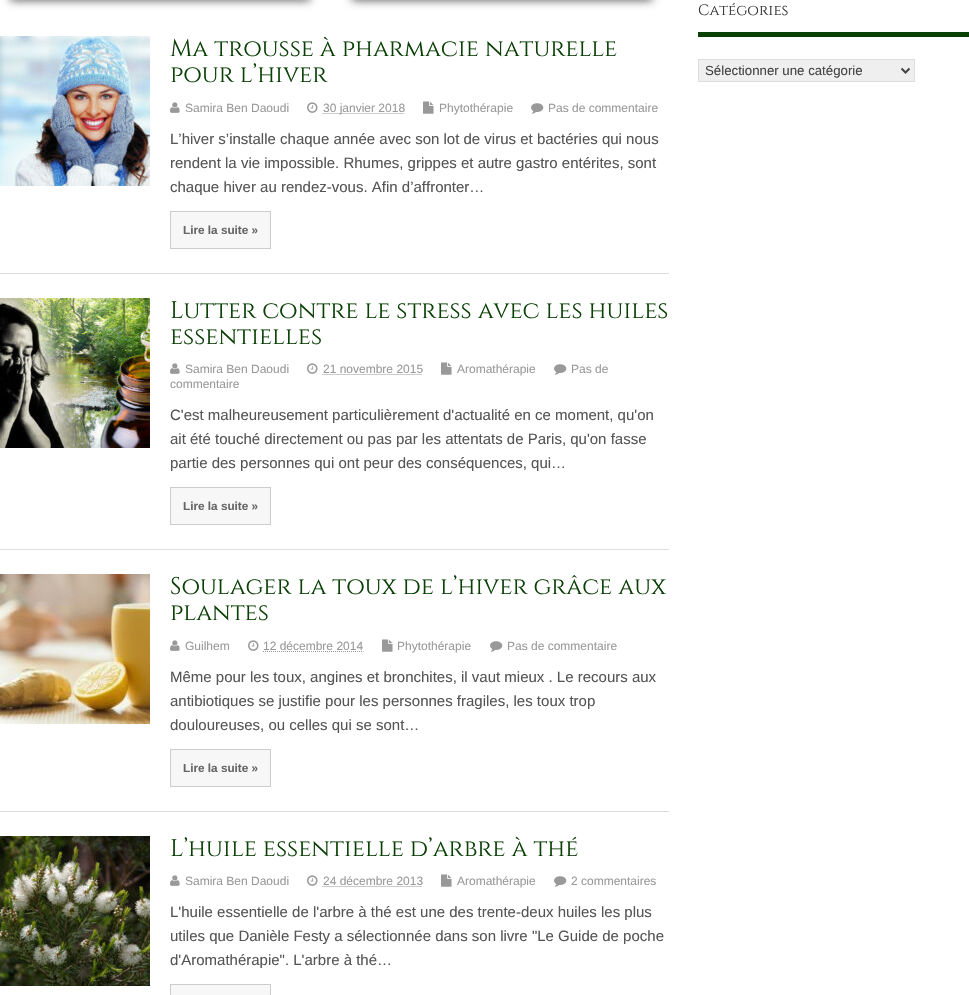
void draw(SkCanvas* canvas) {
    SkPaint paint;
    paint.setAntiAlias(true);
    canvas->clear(0xFFFFFFFF);
    paint.setColor(0xBF000000);
    paint.setMaskFilter(SkMaskFilter::MakeBlur(kNormal_SkBlurStyle, 5));
    canvas->drawRect(SkRect::MakeXYWH(10, -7, 300, 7), paint);
    paint.setMaskFilter(nullptr);
    paint.setMaskFilter(SkMaskFilter::MakeBlur(kNormal_SkBlurStyle, 5));
    canvas->drawRect(SkRect::MakeXYWH(352, -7, 300, 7), paint);
    paint.setMaskFilter(nullptr);
    paint.setColor(0xFFDDDDDD);
    canvas->drawRect(SkRect::MakeXYWH(0, 273, 669, 1), paint);
    canvas->drawImageRect(SkImages::DeferredFromEncodedData(SkData::MakeFromFileName("img1.png")), SkRect::MakeXYWH(0, 36, 150, 150), SkSamplingOptions());
    SkFont font1(fontMgr->matchFamilyStyle("Cinzel", SkFontStyle::Normal()), 24);
    font1.setSubpixel(true);
    paint.setColor(0xFF0A4006);
    canvas->drawString("Ma trousse à pharmacie naturelle", 170, 56, font1, paint);
    canvas->drawString("pour l’hiver", 170, 82, font1, paint);
    canvas->drawImageRect(SkImages::DeferredFromEncodedData(SkData::MakeFromFileName("img2.png")), SkRect::MakeXYWH(170, 102, 10, 11), SkSamplingOptions());
    SkFont font2(fontMgr->matchFamilyStyle("Liberation Sans", SkFontStyle::Normal()), 12);
    font2.setSubpixel(true);
    paint.setColor(0xFF999999);
    canvas->drawString("Samira Ben Daoudi", 185, 112, font2, paint);
    canvas->drawImageRect(SkImages::DeferredFromEncodedData(SkData::MakeFromFileName("img3.png")), SkRect::MakeXYWH(307, 102, 11, 11), SkSamplingOptions());
    paint.setStyle(SkPaint::kStroke_Style);
    paint.setStrokeWidth(1);
    paint.setPathEffect(SkDashPathEffect::Make({{1, 1}}, 0));
    canvas->drawPath(SkPathBuilder().moveTo(322.5f, 113.5f).lineTo(404.5f, 113.5f).detach(), paint);
    paint.setPathEffect(nullptr);
    paint.setStyle(SkPaint::kFill_Style);
    canvas->drawString("30 janvier 2018", 323, 112, font2, paint);
    canvas->drawImageRect(SkImages::DeferredFromEncodedData(SkData::MakeFromFileName("img4.png")), SkRect::MakeXYWH(423, 101, 11, 13), SkSamplingOptions());
    canvas->drawString("Phytothérapie", 439, 112, font2, paint);
    canvas->drawImageRect(SkImages::DeferredFromEncodedData(SkData::MakeFromFileName("img5.png")), SkRect::MakeXYWH(531, 103, 13, 11), SkSamplingOptions());
    canvas->drawString("Pas de commentaire", 548, 112, font2, paint);
    SkFont font3(fontMgr->matchFamilyStyle("Liberation Sans", SkFontStyle::Normal()), 15);
    font3.setSubpixel(true);
    paint.setColor(0xFF555555);
    canvas->drawString("L’hiver s’installe chaque année avec son lot de virus et bactéries qui nous", 170, 144, font3, paint);
    canvas->drawString("rendent la vie impossible. Rhumes, grippes et autre gastro entérites, sont", 170, 168, font3, paint);
    canvas->drawString("chaque hiver au rendez-vous. Afin d’affronter…", 170, 192, font3, paint);
    paint.setColor(0xFFF7F7F7);
    canvas->drawRect(SkRect::MakeXYWH(170.5f, 211.5f, 100, 37), paint);
    paint.setStyle(SkPaint::kStroke_Style);
    paint.setColor(0xFFCCCCCC);
    canvas->drawRect(SkRect::MakeXYWH(170.5f, 211.5f, 100, 37), paint);
    SkFont font4(fontMgr->matchFamilyStyle("Liberation Sans", SkFontStyle::Bold()), 11.75f);
    font4.setSubpixel(true);
    paint.setStyle(SkPaint::kFill_Style);
    paint.setColor(0xFF666666);
    canvas->drawString("Lire la suite »", 183, 234, font4, paint);
    paint.setColor(0xFFDDDDDD);
    canvas->drawRect(SkRect::MakeXYWH(0, 549, 669, 1), paint);
    canvas->drawImageRect(SkImages::DeferredFromEncodedData(SkData::MakeFromFileName("img6.png")), SkRect::MakeXYWH(0, 298, 150, 150), SkSamplingOptions());
    paint.setColor(0xFF0A4006);
    canvas->drawString("Lutter contre le stress avec les huiles", 170, 318, font1, paint);
    canvas->drawString("essentielles", 170, 344, font1, paint);
    canvas->drawImageRect(SkImages::DeferredFromEncodedData(SkData::MakeFromFileName("img5.png")), SkRect::MakeXYWH(554, 364, 13, 11), SkSamplingOptions());
    paint.setColor(0xFF999999);
    canvas->drawString("Pas de", 571, 373, font2, paint);
    canvas->drawString("commentaire", 170, 388, font2, paint);
    canvas->drawImageRect(SkImages::DeferredFromEncodedData(SkData::MakeFromFileName("img2.png")), SkRect::MakeXYWH(170, 363, 10, 11), SkSamplingOptions());
    canvas->drawString("Samira Ben Daoudi", 185, 373, font2, paint);
    canvas->drawImageRect(SkImages::DeferredFromEncodedData(SkData::MakeFromFileName("img3.png")), SkRect::MakeXYWH(307, 363, 11, 11), SkSamplingOptions());
    canvas->drawString("21 novembre 2015", 323, 373, font2, paint);
    paint.setStyle(SkPaint::kStroke_Style);
    paint.setPathEffect(SkDashPathEffect::Make({{1, 1}}, 0));
    canvas->drawPath(SkPathBuilder().moveTo(322.5f, 374.5f).lineTo(422.5f, 374.5f).detach(), paint);
    paint.setPathEffect(nullptr);
    canvas->drawImageRect(SkImages::DeferredFromEncodedData(SkData::MakeFromFileName("img4.png")), SkRect::MakeXYWH(441, 362, 11, 13), SkSamplingOptions());
    paint.setStyle(SkPaint::kFill_Style);
    canvas->drawString("Aromathérapie", 457, 373, font2, paint);
    paint.setColor(0xFF555555);
    canvas->drawString("C'est malheureusement particulièrement d'actualité en ce moment, qu'on", 170, 420, font3, paint);
    canvas->drawString("ait été touché directement ou pas par les attentats de Paris, qu'on fasse", 170, 444, font3, paint);
    canvas->drawString("partie des personnes qui ont peur des conséquences, qui…", 170, 468, font3, paint);
    paint.setColor(0xFFF7F7F7);
    canvas->drawRect(SkRect::MakeXYWH(170.5f, 487.5f, 100, 37), paint);
    paint.setStyle(SkPaint::kStroke_Style);
    paint.setColor(0xFFCCCCCC);
    canvas->drawRect(SkRect::MakeXYWH(170.5f, 487.5f, 100, 37), paint);
    paint.setStyle(SkPaint::kFill_Style);
    paint.setColor(0xFF666666);
    canvas->drawString("Lire la suite »", 183, 510, font4, paint);
    paint.setColor(0xFFDDDDDD);
    canvas->drawRect(SkRect::MakeXYWH(0, 811, 669, 1), paint);
    canvas->drawImageRect(SkImages::DeferredFromEncodedData(SkData::MakeFromFileName("img7.png")), SkRect::MakeXYWH(0, 574, 150, 150), SkSamplingOptions());
    paint.setColor(0xFF0A4006);
    canvas->drawString("Soulager la toux de l’hiver grâce aux", 170, 594, font1, paint);
    canvas->drawString("plantes", 170, 620, font1, paint);
    canvas->drawImageRect(SkImages::DeferredFromEncodedData(SkData::MakeFromFileName("img2.png")), SkRect::MakeXYWH(170, 640, 10, 11), SkSamplingOptions());
    paint.setColor(0xFF999999);
    canvas->drawString("Guilhem", 185, 650, font2, paint);
    canvas->drawImageRect(SkImages::DeferredFromEncodedData(SkData::MakeFromFileName("img3.png")), SkRect::MakeXYWH(248, 640, 11, 11), SkSamplingOptions());
    canvas->drawString("12 décembre 2014", 263, 650, font2, paint);
    paint.setStyle(SkPaint::kStroke_Style);
    paint.setPathEffect(SkDashPathEffect::Make({{1, 1}}, 0));
    canvas->drawPath(SkPathBuilder().moveTo(263, 651.5f).lineTo(363.5f, 651.5f).detach(), paint);
    paint.setPathEffect(nullptr);
    canvas->drawImageRect(SkImages::DeferredFromEncodedData(SkData::MakeFromFileName("img4.png")), SkRect::MakeXYWH(382, 639, 11, 13), SkSamplingOptions());
    paint.setStyle(SkPaint::kFill_Style);
    canvas->drawString("Phytothérapie", 397, 650, font2, paint);
    canvas->drawImageRect(SkImages::DeferredFromEncodedData(SkData::MakeFromFileName("img5.png")), SkRect::MakeXYWH(490, 641, 13, 11), SkSamplingOptions());
    canvas->drawString("Pas de commentaire", 507, 650, font2, paint);
    paint.setColor(0xFF555555);
    canvas->drawString("Même pour les toux, angines et bronchites, il vaut mieux . Le recours aux", 170, 682, font3, paint);
    canvas->drawString("antibiotiques se justifie pour les personnes fragiles, les toux trop", 170, 706, font3, paint);
    canvas->drawString("douloureuses, ou celles qui se sont…", 170, 730, font3, paint);
    paint.setColor(0xFFF7F7F7);
    canvas->drawRect(SkRect::MakeXYWH(170.5f, 749.5f, 100, 37), paint);
    paint.setStyle(SkPaint::kStroke_Style);
    paint.setColor(0xFFCCCCCC);
    canvas->drawRect(SkRect::MakeXYWH(170.5f, 749.5f, 100, 37), paint);
    paint.setStyle(SkPaint::kFill_Style);
    paint.setColor(0xFF666666);
    canvas->drawString("Lire la suite »", 183, 772, font4, paint);
    canvas->drawImageRect(SkImages::DeferredFromEncodedData(SkData::MakeFromFileName("img8.png")), SkRect::MakeXYWH(0, 836, 150, 150), SkSamplingOptions());
    paint.setColor(0xFF0A4006);
    canvas->drawString("L’huile essentielle d’arbre à thé", 170, 856, font1, paint);
    canvas->drawImageRect(SkImages::DeferredFromEncodedData(SkData::MakeFromFileName("img2.png")), SkRect::MakeXYWH(170, 875, 10, 11), SkSamplingOptions());
    paint.setColor(0xFF999999);
    canvas->drawString("Samira Ben Daoudi", 185, 885, font2, paint);
    canvas->drawImageRect(SkImages::DeferredFromEncodedData(SkData::MakeFromFileName("img3.png")), SkRect::MakeXYWH(307, 875, 11, 11), SkSamplingOptions());
    canvas->drawString("24 décembre 2013", 323, 885, font2, paint);
    paint.setStyle(SkPaint::kStroke_Style);
    paint.setPathEffect(SkDashPathEffect::Make({{1, 1}}, 0));
    canvas->drawPath(SkPathBuilder().moveTo(322.5f, 886.5f).lineTo(422.5f, 886.5f).detach(), paint);
    paint.setPathEffect(nullptr);
    canvas->drawImageRect(SkImages::DeferredFromEncodedData(SkData::MakeFromFileName("img4.png")), SkRect::MakeXYWH(441, 874, 11, 13), SkSamplingOptions());
    paint.setStyle(SkPaint::kFill_Style);
    canvas->drawString("Aromathérapie", 457, 885, font2, paint);
    canvas->drawImageRect(SkImages::DeferredFromEncodedData(SkData::MakeFromFileName("img5.png")), SkRect::MakeXYWH(554, 876, 13, 11), SkSamplingOptions());
    canvas->drawString("2 commentaires", 571, 885, font2, paint);
    paint.setColor(0xFF555555);
    canvas->drawString("L'huile essentielle de l'arbre à thé est une des trente-deux huiles les plus", 170, 917, font3, paint);
    canvas->drawString("utiles que Danièle Festy a sélectionnée dans son livre \"Le Guide de poche", 170, 941, font3, paint);
    canvas->drawString("d'Aromathérapie\". L'arbre à thé…", 170, 965, font3, paint);
    paint.setColor(0xFFF7F7F7);
    canvas->drawRect(SkRect::MakeXYWH(170.5f, 984.5f, 100, 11), paint);
    paint.setStyle(SkPaint::kStroke_Style);
    paint.setColor(0xFFCCCCCC);
    canvas->drawRect(SkRect::MakeXYWH(170.5f, 984.5f, 100, 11), paint);
    paint.setStyle(SkPaint::kFill_Style);
    paint.setColor(0xFF0A4006);
    canvas->drawRect(SkRect::MakeXYWH(698, 32, 271, 5), paint);
    SkFont font5(fontMgr->matchFamilyStyle("Cinzel", SkFontStyle::Normal()), 15);
    font5.setSubpixel(true);
    paint.setColor(0xFF333333);
    canvas->drawString("Catégories", 698, 15, font5, paint);
    paint.setColor(0xFFEFEFEF);
    canvas->drawRect(SkRect::MakeXYWH(698.5f, 59.5f, 216, 22), paint);
    paint.setStyle(SkPaint::kStroke_Style);
    paint.setColor(0xFFDDDDDD);
    canvas->drawRect(SkRect::MakeXYWH(698.5f, 59.5f, 216, 22), paint);
    paint.setStrokeWidth(2);
    paint.setColor(0xFF444444);
    canvas->drawPath(SkPathBuilder().moveTo(901.5f, 68.5f).lineTo(905.5f, 72.5f).lineTo(909.5f, 68.5f).detach(), paint);
    SkFont font6(fontMgr->matchFamilyStyle("Liberation Sans", SkFontStyle::Normal()), 13.25f);
    font6.setSubpixel(true);
    paint.setStyle(SkPaint::kFill_Style);
    canvas->drawString("Sélectionner une catégorie", 705, 75, font6, paint);
}
